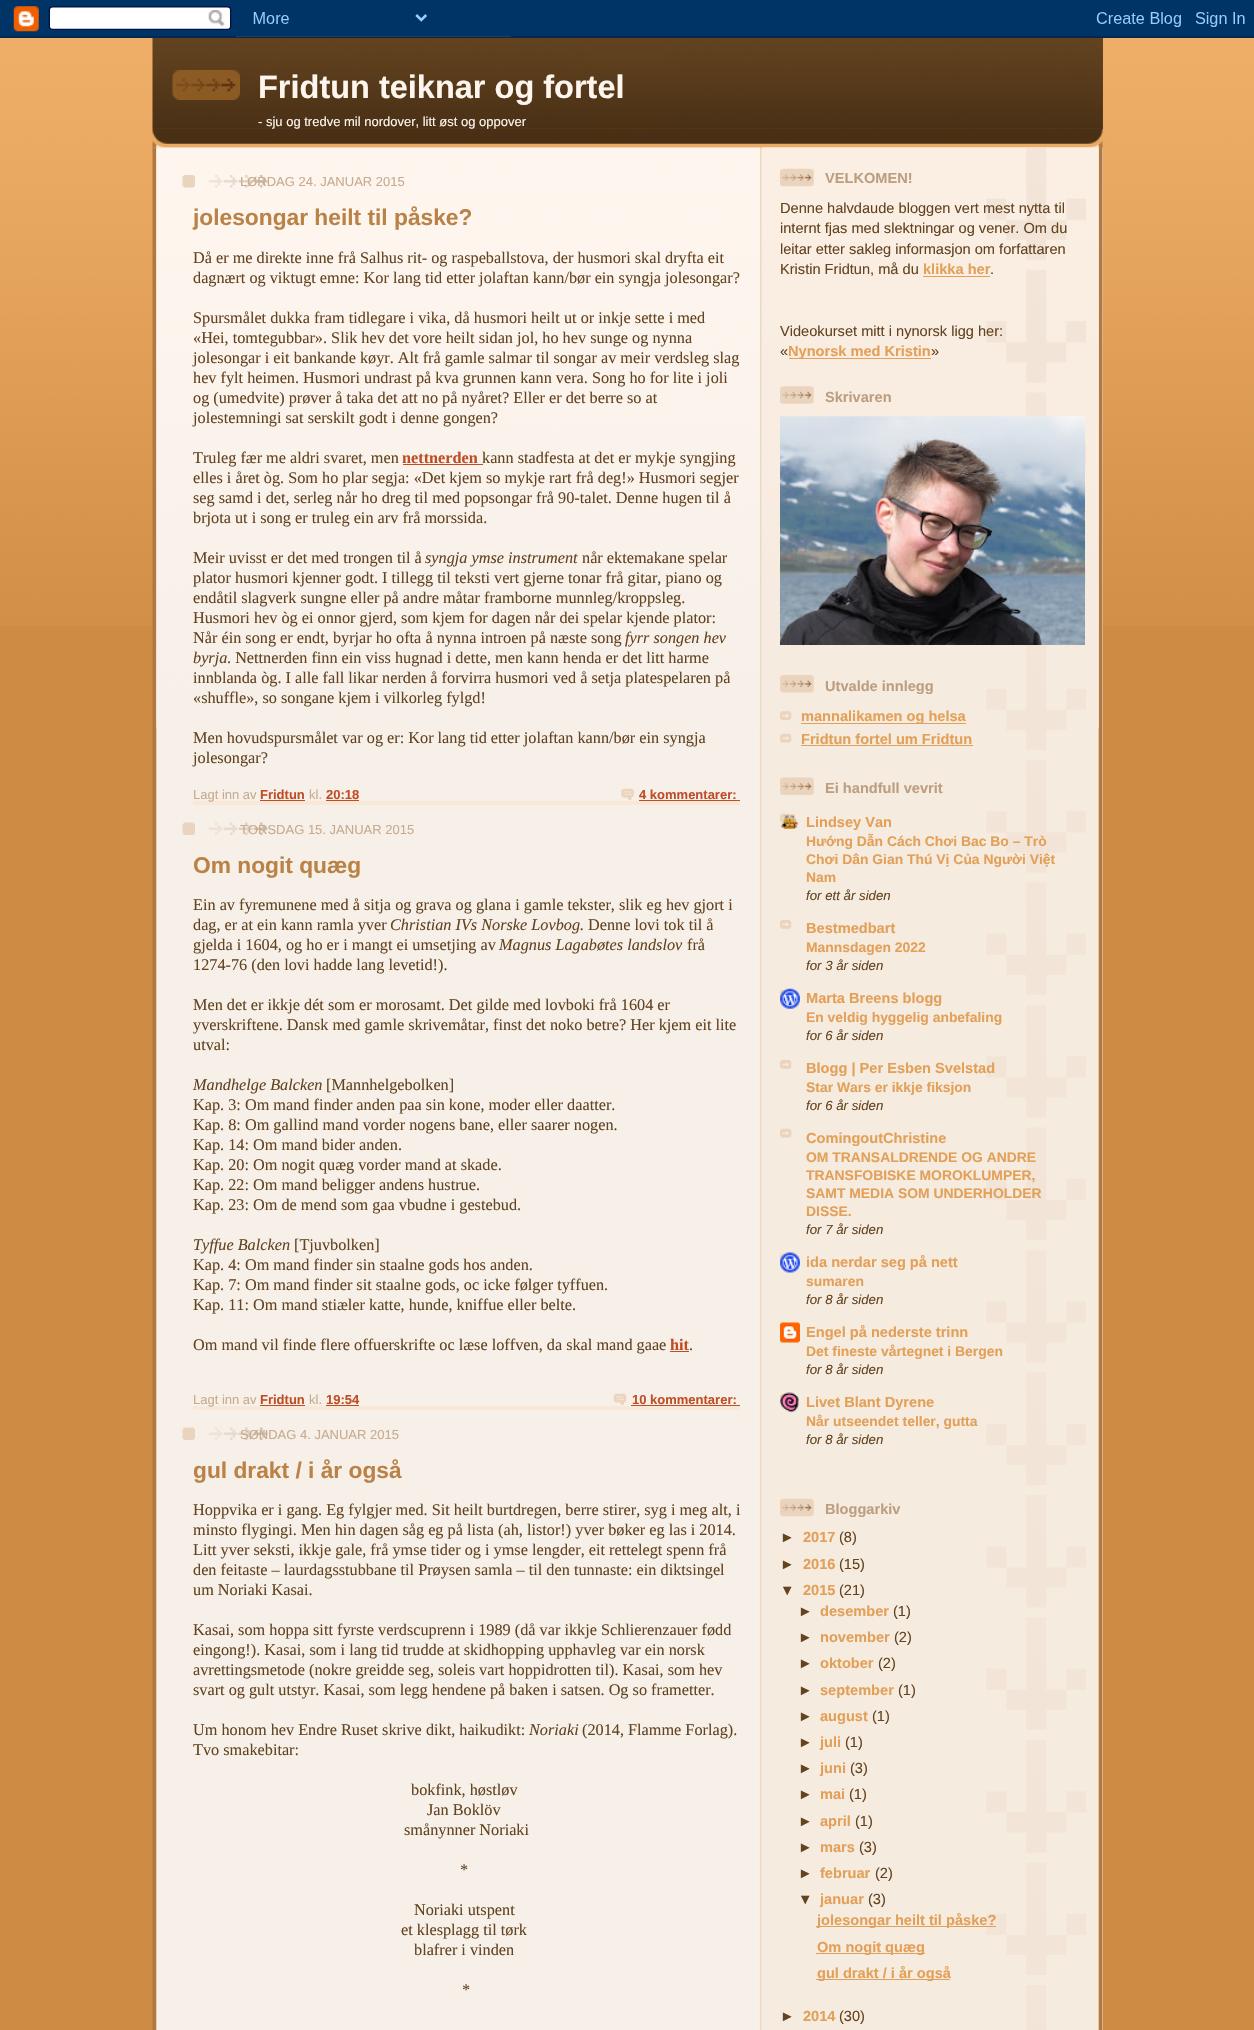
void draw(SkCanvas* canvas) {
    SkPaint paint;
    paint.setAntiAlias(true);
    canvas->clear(0xFFCE8B43);
    canvas->drawImageRect(SkImages::DeferredFromEncodedData(SkData::MakeFromFileName("img1.png")), SkRect::MakeXYWH(0, 36, 1254, 590), SkSamplingOptions());
    canvas->drawImageRect(SkImages::DeferredFromEncodedData(SkData::MakeFromFileName("img2.png")), SkRect::MakeXYWH(0, 0, 1254, 38), SkSamplingOptions());
    canvas->drawImageRect(SkImages::DeferredFromEncodedData(SkData::MakeFromFileName("img3.png")), SkRect::MakeXYWH(152, 128, 951, 20), SkSamplingOptions());
    paint.setColor(0xFF634320);
    canvas->drawRect(SkRect::MakeXYWH(153, 38, 950, 91), paint);
    canvas->drawImageRect(SkImages::DeferredFromEncodedData(SkData::MakeFromFileName("img4.png")), SkRect::MakeXYWH(152, 38, 951, 91), SkSamplingOptions());
    canvas->drawImageRect(SkImages::DeferredFromEncodedData(SkData::MakeFromFileName("img5.png")), SkRect::MakeXYWH(172, 70, 68, 30), SkSamplingOptions());
    SkFont font1(fontMgr->matchFamilyStyle("Liberation Sans", SkFontStyle::Bold()), 32.5f);
    font1.setSubpixel(true);
    paint.setColor(0xFFFEF6EE);
    canvas->drawString("Fridtun teiknar og fortel", 258, 98, font1, paint);
    SkFont font2(fontMgr->matchFamilyStyle("Liberation Sans", SkFontStyle::Normal()), 13);
    font2.setSubpixel(true);
    canvas->drawString("- sju og tredve mil nordover, litt øst og oppover", 258, 126, font2, paint);
    paint.setColor(0xFFF7F0E9);
    canvas->drawRect(SkRect::MakeXYWH(1102, 148, 1, 1882), paint);
    canvas->drawImageRect(SkImages::DeferredFromEncodedData(SkData::MakeFromFileName("img6.png")), SkRect::MakeXYWH(152, 147, 951, 1883), SkSamplingOptions());
    canvas->drawImageRect(SkImages::DeferredFromEncodedData(SkData::MakeFromFileName("img7.png")), SkRect::MakeXYWH(156, 147, 604, 581), SkSamplingOptions());
    canvas->drawImageRect(SkImages::DeferredFromEncodedData(SkData::MakeFromFileName("img8.png")), SkRect::MakeXYWH(182, 175, 13, 13), SkSamplingOptions());
    canvas->drawImageRect(SkImages::DeferredFromEncodedData(SkData::MakeFromFileName("img9.png")), SkRect::MakeXYWH(208, 175, 60, 13), SkSamplingOptions());
    paint.setColor(0xFFC8AB8F);
    canvas->drawString("LØRDAG 24. JANUAR 2015", 240, 186, font2, paint);
    paint.setColor(0xFFF7E8D8);
    canvas->drawRect(SkRect::MakeXYWH(193, 801, 547, 4), paint);
    SkFont font3(fontMgr->matchFamilyStyle("Liberation Sans", SkFontStyle::Bold()), 22.75f);
    font3.setSubpixel(true);
    paint.setColor(0xFFBA8247);
    canvas->drawString("jolesongar heilt til påske?", 193, 225, font3, paint);
    SkFont font4(fontMgr->matchFamilyStyle("Liberation Serif", SkFontStyle::Normal()), 16.25f);
    font4.setSubpixel(true);
    paint.setColor(0xFF634320);
    canvas->drawString("Då er me direkte inne frå Salhus rit- og raspeballstova, der husmori skal dryfta eit", 193, 263, font4, paint);
    canvas->drawString("dagnært og viktugt emne: Kor lang tid etter jolaftan kann/bør ein syngja jolesongar?", 193, 283, font4, paint);
    canvas->drawString("Spursmålet dukka fram tidlegare i vika, då husmori heilt ut or inkje sette i med", 193, 323, font4, paint);
    canvas->drawString("«Hei, tomtegubbar». Slik hev det vore heilt sidan jol, ho hev sunge og nynna", 193, 343, font4, paint);
    canvas->drawString("jolesongar i eit bankande køyr. Alt frå gamle salmar til songar av meir verdsleg slag", 193, 363, font4, paint);
    canvas->drawString("hev fylt heimen. Husmori undrast på kva grunnen kann vera. Song ho for lite i joli", 193, 383, font4, paint);
    canvas->drawString("og (umedvite) prøver å taka det att no på nyåret? Eller er det berre so at", 193, 403, font4, paint);
    canvas->drawString("jolestemningi sat serskilt godt i denne gongen?", 193, 423, font4, paint);
    canvas->drawString("Truleg fær me aldri svaret, men", 193, 463, font4, paint);
    SkFont font5(fontMgr->matchFamilyStyle("Liberation Serif", SkFontStyle::Bold()), 16.25f);
    font5.setSubpixel(true);
    paint.setColor(0xFFBF4E27);
    canvas->drawString("nettnerden", 402, 463, font5, paint);
    canvas->drawRect(SkRect::MakeXYWH(403, 464, 80, 1), paint);
    paint.setColor(0xFF634320);
    canvas->drawString("kann stadfesta at det er mykje syngjing", 482, 463, font4, paint);
    canvas->drawString("elles i året òg. Som ho plar segja: «Det kjem so mykje rart frå deg!» Husmori segjer", 193, 483, font4, paint);
    canvas->drawString("seg samd i det, serleg når ho dreg til med popsongar frå 90-talet. Denne hugen til å", 193, 503, font4, paint);
    canvas->drawString("brjota ut i song er truleg ein arv frå morssida.", 193, 523, font4, paint);
    canvas->drawString("Meir uvisst er det med trongen til å", 193, 563, font4, paint);
    SkFont font6(fontMgr->matchFamilyStyle("Liberation Serif", SkFontStyle::Italic()), 16.25f);
    font6.setSubpixel(true);
    canvas->drawString("syngja ymse instrument", 425, 563, font6, paint);
    canvas->drawString("når ektemakane spelar", 582, 563, font4, paint);
    canvas->drawString("plator husmori kjenner godt. I tillegg til teksti vert gjerne tonar frå gitar, piano og", 193, 583, font4, paint);
    canvas->drawString("endåtil slagverk sungne eller på andre måtar framborne munnleg/kroppsleg.", 193, 603, font4, paint);
    canvas->drawString("Husmori hev òg ei onnor gjerd, som kjem for dagen når dei spelar kjende plator:", 193, 623, font4, paint);
    canvas->drawString("Når éin song er endt, byrjar ho ofta å nynna introen på næste song", 193, 643, font4, paint);
    canvas->drawString("fyrr songen hev", 625, 643, font6, paint);
    canvas->drawString("byrja", 193, 663, font6, paint);
    canvas->drawString(". Nettnerden finn ein viss hugnad i dette, men kann henda er det litt harme", 227, 663, font4, paint);
    canvas->drawString("innblanda òg. I alle fall likar nerden å forvirra husmori ved å setja platespelaren på", 193, 683, font4, paint);
    canvas->drawString("«shuffle», so songane kjem i vilkorleg fylgd!", 193, 703, font4, paint);
    canvas->drawString("Men hovudspursmålet var og er: Kor lang tid etter jolaftan kann/bør ein syngja", 193, 743, font4, paint);
    canvas->drawString("jolesongar?", 193, 763, font4, paint);
    paint.setColor(0xFFC8AB8F);
    canvas->drawString("Lagt inn av", 193, 799, font2, paint);
    SkFont font7(fontMgr->matchFamilyStyle("Liberation Sans", SkFontStyle::Bold()), 13);
    font7.setSubpixel(true);
    paint.setColor(0xFFBF4E27);
    canvas->drawString("Fridtun", 260, 799, font7, paint);
    canvas->drawRect(SkRect::MakeXYWH(260, 800, 45, 1), paint);
    paint.setColor(0xFFC8AB8F);
    canvas->drawString("kl.", 309, 799, font2, paint);
    paint.setStyle(SkPaint::kStroke_Style);
    paint.setStrokeWidth(1.2f);
    paint.setColor(0xFFBF4E27);
    paint.setPathEffect(SkDashPathEffect::Make({{1.25f, 1.25f}}, 0));
    canvas->drawPath(SkPathBuilder().moveTo(326, 800.5f).lineTo(359, 800.5f).detach(), paint);
    paint.setPathEffect(nullptr);
    paint.setStyle(SkPaint::kFill_Style);
    canvas->drawString("20:18", 326, 799, font7, paint);
    canvas->drawRect(SkRect::MakeXYWH(326, 800, 33, 1), paint);
    canvas->drawImageRect(SkImages::DeferredFromEncodedData(SkData::MakeFromFileName("img10.png")), SkRect::MakeXYWH(621, 788, 13, 12), SkSamplingOptions());
    canvas->drawString("4 kommentarer:", 639, 799, font7, paint);
    canvas->drawRect(SkRect::MakeXYWH(639, 800, 101, 1), paint);
    canvas->drawImageRect(SkImages::DeferredFromEncodedData(SkData::MakeFromFileName("img11.png")), SkRect::MakeXYWH(182, 822, 13, 13), SkSamplingOptions());
    canvas->drawImageRect(SkImages::DeferredFromEncodedData(SkData::MakeFromFileName("img12.png")), SkRect::MakeXYWH(208, 822, 60, 13), SkSamplingOptions());
    paint.setColor(0xFFC8AB8F);
    canvas->drawString("TORSDAG 15. JANUAR 2015", 240, 834, font2, paint);
    paint.setColor(0xFFF7E8D8);
    canvas->drawRect(SkRect::MakeXYWH(193, 1406, 547, 4), paint);
    paint.setColor(0xFFBA8247);
    canvas->drawString("Om nogit quæg", 193, 873, font3, paint);
    paint.setColor(0xFF634320);
    canvas->drawString("Ein av fyremunene med å sitja og grava og glana i gamle tekster, slik eg hev gjort i", 193, 910, font4, paint);
    canvas->drawString("dag, er at ein kann ramla yver", 193, 930, font4, paint);
    canvas->drawString("Christian IVs Norske Lovbog.", 390, 930, font6, paint);
    canvas->drawString("Denne lovi tok til å", 588, 930, font4, paint);
    canvas->drawString("gjelda i 1604, og ho er i mangt ei umsetjing av", 193, 950, font4, paint);
    canvas->drawString("Magnus Lagabøtes landslov", 499, 950, font6, paint);
    canvas->drawString("frå", 687, 950, font4, paint);
    canvas->drawString("1274-76 (den lovi hadde lang levetid!).", 193, 970, font4, paint);
    canvas->drawString("Men det er ikkje dét som er morosamt. Det gilde med lovboki frå 1604 er", 193, 1010, font4, paint);
    canvas->drawString("yverskriftene. Dansk med gamle skrivemåtar, finst det noko betre? Her kjem eit lite", 193, 1030, font4, paint);
    canvas->drawString("utval:", 193, 1050, font4, paint);
    canvas->drawString("Mandhelge Balcken", 193, 1090, font6, paint);
    canvas->drawString("[Mannhelgebolken]", 326, 1090, font4, paint);
    canvas->drawString("Kap. 3: Om mand finder anden paa sin kone, moder eller daatter.", 193, 1110, font4, paint);
    canvas->drawString("Kap. 8: Om gallind mand vorder nogens bane, eller saarer nogen.", 193, 1130, font4, paint);
    canvas->drawString("Kap. 14: Om mand bider anden.", 193, 1150, font4, paint);
    canvas->drawString("Kap. 20: Om nogit quæg vorder mand at skade.", 193, 1170, font4, paint);
    canvas->drawString("Kap. 22: Om mand beligger andens hustrue.", 193, 1190, font4, paint);
    canvas->drawString("Kap. 23: Om de mend som gaa vbudne i gestebud.", 193, 1210, font4, paint);
    canvas->drawString("Tyffue Balcken", 193, 1250, font6, paint);
    canvas->drawString("[Tjuvbolken]", 294, 1250, font4, paint);
    canvas->drawString("Kap. 4: Om mand finder sin staalne gods hos anden.", 193, 1270, font4, paint);
    canvas->drawString("Kap. 7: Om mand finder sit staalne gods, oc icke følger tyffuen.", 193, 1290, font4, paint);
    canvas->drawString("Kap. 11: Om mand stiæler katte, hunde, kniffue eller belte.", 193, 1310, font4, paint);
    canvas->drawString("Om mand vil finde flere offuerskrifte oc læse loffven, da skal mand gaae", 193, 1350, font4, paint);
    paint.setColor(0xFFBF4E27);
    canvas->drawString("hit", 670, 1350, font5, paint);
    paint.setColor(0xFF634320);
    canvas->drawString(".", 689, 1350, font4, paint);
    paint.setColor(0xFFBF4E27);
    canvas->drawRect(SkRect::MakeXYWH(670, 1351, 19, 1), paint);
    paint.setColor(0xFFC8AB8F);
    canvas->drawString("Lagt inn av", 193, 1404, font2, paint);
    paint.setColor(0xFFBF4E27);
    canvas->drawString("Fridtun", 260, 1404, font7, paint);
    canvas->drawRect(SkRect::MakeXYWH(260, 1405, 45, 1), paint);
    paint.setColor(0xFFC8AB8F);
    canvas->drawString("kl.", 309, 1404, font2, paint);
    paint.setStyle(SkPaint::kStroke_Style);
    paint.setColor(0xFFBF4E27);
    paint.setPathEffect(SkDashPathEffect::Make({{1.25f, 1.25f}}, 0));
    canvas->drawPath(SkPathBuilder().moveTo(326, 1405.5f).lineTo(359, 1405.5f).detach(), paint);
    paint.setPathEffect(nullptr);
    paint.setStyle(SkPaint::kFill_Style);
    canvas->drawString("19:54", 326, 1404, font7, paint);
    canvas->drawRect(SkRect::MakeXYWH(326, 1405, 33, 1), paint);
    canvas->drawImageRect(SkImages::DeferredFromEncodedData(SkData::MakeFromFileName("img13.png")), SkRect::MakeXYWH(613, 1393, 14, 12), SkSamplingOptions());
    canvas->drawString("10 kommentarer:", 632, 1404, font7, paint);
    canvas->drawRect(SkRect::MakeXYWH(631, 1405, 109, 1), paint);
    canvas->drawImageRect(SkImages::DeferredFromEncodedData(SkData::MakeFromFileName("img11.png")), SkRect::MakeXYWH(182, 1427, 13, 13), SkSamplingOptions());
    canvas->drawImageRect(SkImages::DeferredFromEncodedData(SkData::MakeFromFileName("img12.png")), SkRect::MakeXYWH(208, 1427, 60, 13), SkSamplingOptions());
    paint.setColor(0xFFC8AB8F);
    canvas->drawString("SØNDAG 4. JANUAR 2015", 240, 1439, font2, paint);
    paint.setColor(0xFFBA8247);
    canvas->drawString("gul drakt / i år også", 193, 1478, font3, paint);
    paint.setColor(0xFF634320);
    canvas->drawString("Hoppvika er i gang. Eg fylgjer med. Sit heilt burtdregen, berre stirer, syg i meg alt, i", 193, 1515, font4, paint);
    canvas->drawString("minsto flygingi. Men hin dagen såg eg på lista (ah, listor!) yver bøker eg las i 2014.", 193, 1535, font4, paint);
    canvas->drawString("Litt yver seksti, ikkje gale, frå ymse tider og i ymse lengder, eit rettelegt spenn frå", 193, 1555, font4, paint);
    canvas->drawString("den feitaste – laurdagsstubbane til Prøysen samla – til den tunnaste: ein diktsingel", 193, 1575, font4, paint);
    canvas->drawString("um Noriaki Kasai.", 193, 1595, font4, paint);
    canvas->drawString("Kasai, som hoppa sitt fyrste verdscuprenn i 1989 (då var ikkje Schlierenzauer fødd", 193, 1635, font4, paint);
    canvas->drawString("eingong!). Kasai, som i lang tid trudde at skidhopping upphavleg var ein norsk", 193, 1655, font4, paint);
    canvas->drawString("avrettingsmetode (nokre greidde seg, soleis vart hoppidrotten til). Kasai, som hev", 193, 1675, font4, paint);
    canvas->drawString("svart og gult utstyr. Kasai, som legg hendene på baken i satsen. Og so frametter.", 193, 1695, font4, paint);
    canvas->drawString("Um honom hev Endre Ruset skrive dikt, haikudikt:", 193, 1735, font4, paint);
    canvas->drawString("Noriaki", 529, 1735, font6, paint);
    canvas->drawString("(2014, Flamme Forlag).", 582, 1735, font4, paint);
    canvas->drawString("Tvo smakebitar:", 193, 1755, font4, paint);
    canvas->drawString("bokfink, høstløv", 411, 1795, font4, paint);
    canvas->drawString("Jan Boklöv", 427, 1815, font4, paint);
    canvas->drawString("smånynner Noriaki", 404, 1835, font4, paint);
    canvas->drawString("*", 460, 1875, font4, paint);
    canvas->drawString("Noriaki utspent", 414, 1915, font4, paint);
    canvas->drawString("et klesplagg til tørk", 401, 1935, font4, paint);
    canvas->drawString("blafrer i vinden", 414, 1955, font4, paint);
    canvas->drawString("*", 462, 1995, font4, paint);
    canvas->drawImageRect(SkImages::DeferredFromEncodedData(SkData::MakeFromFileName("img14.png")), SkRect::MakeXYWH(762, 147, 337, 581), SkSamplingOptions());
    canvas->drawImageRect(SkImages::DeferredFromEncodedData(SkData::MakeFromFileName("img15.png")), SkRect::MakeXYWH(986, 148, 100, 1882), SkSamplingOptions());
    canvas->drawImageRect(SkImages::DeferredFromEncodedData(SkData::MakeFromFileName("img16.png")), SkRect::MakeXYWH(780, 168, 34, 19), SkSamplingOptions());
    SkFont font8(fontMgr->matchFamilyStyle("Liberation Sans", SkFontStyle::Bold()), 14.6f);
    font8.setSubpixel(true);
    paint.setColor(0xFFBD9E80);
    canvas->drawString("VELKOMEN!", 825, 183, font8, paint);
    SkFont font9(fontMgr->matchFamilyStyle("Liberation Sans", SkFontStyle::Normal()), 14.6f);
    font9.setSubpixel(true);
    paint.setColor(0xFF634320);
    canvas->drawString("Denne halvdaude bloggen vert mest nytta til", 780, 213, font9, paint);
    canvas->drawString("internt fjas med slektningar og vener. Om du", 780, 233, font9, paint);
    canvas->drawString("leitar etter sakleg informasjon om forfattaren", 780, 254, font9, paint);
    canvas->drawString("Kristin Fridtun, må du", 780, 274, font9, paint);
    paint.setColor(0xFFE2A059);
    canvas->drawString("klikka her", 923, 274, font8, paint);
    canvas->drawRect(SkRect::MakeXYWH(923, 276, 67, 1), paint);
    paint.setColor(0xFF634320);
    canvas->drawString(".", 990, 274, font9, paint);
    canvas->drawString("Videokurset mitt i nynorsk ligg her:", 780, 336, font9, paint);
    canvas->drawString("«", 780, 356, font9, paint);
    paint.setColor(0xFFE2A059);
    canvas->drawRect(SkRect::MakeXYWH(789, 358, 142, 1), paint);
    canvas->drawString("Nynorsk med Kristin", 788, 356, font8, paint);
    paint.setColor(0xFF634320);
    canvas->drawString("»", 931, 356, font9, paint);
    canvas->drawImageRect(SkImages::DeferredFromEncodedData(SkData::MakeFromFileName("img17.png")), SkRect::MakeXYWH(780, 386, 34, 18), SkSamplingOptions());
    paint.setColor(0xFFBD9E80);
    canvas->drawString("Skrivaren", 825, 402, font8, paint);
    canvas->drawImageRect(SkImages::DeferredFromEncodedData(SkData::MakeFromFileName("img18.png")), SkRect::MakeXYWH(780, 416, 305, 229), SkSamplingOptions());
    canvas->drawImageRect(SkImages::DeferredFromEncodedData(SkData::MakeFromFileName("img19.png")), SkRect::MakeXYWH(780, 675, 34, 18), SkSamplingOptions());
    canvas->drawString("Utvalde innlegg", 825, 691, font8, paint);
    canvas->drawImageRect(SkImages::DeferredFromEncodedData(SkData::MakeFromFileName("img20.png")), SkRect::MakeXYWH(780, 711, 12, 9), SkSamplingOptions());
    paint.setColor(0xFFE2A059);
    canvas->drawRect(SkRect::MakeXYWH(801, 723, 165, 1), paint);
    canvas->drawString("mannalikamen og helsa", 801, 721, font8, paint);
    canvas->drawImageRect(SkImages::DeferredFromEncodedData(SkData::MakeFromFileName("img21.png")), SkRect::MakeXYWH(780, 733, 12, 10), SkSamplingOptions());
    canvas->drawString("Fridtun fortel um Fridtun", 801, 744, font8, paint);
    canvas->drawRect(SkRect::MakeXYWH(801, 745, 172, 1), paint);
    canvas->drawImageRect(SkImages::DeferredFromEncodedData(SkData::MakeFromFileName("img22.png")), SkRect::MakeXYWH(780, 777, 34, 18), SkSamplingOptions());
    paint.setColor(0xFFBD9E80);
    canvas->drawString("Ei handfull vevrit", 825, 793, font8, paint);
    canvas->drawImageRect(SkImages::DeferredFromEncodedData(SkData::MakeFromFileName("img21.png")), SkRect::MakeXYWH(780, 813, 12, 10), SkSamplingOptions());
    canvas->drawImageRect(SkImages::DeferredFromEncodedData(SkData::MakeFromFileName("img23.png")), SkRect::MakeXYWH(781, 813, 18, 16), SkSamplingOptions());
    paint.setColor(0xFFE2A059);
    canvas->drawString("Lindsey Van", 806, 827, font8, paint);
    SkFont font10(fontMgr->matchFamilyStyle("Liberation Sans", SkFontStyle::Bold()), 13.9f);
    font10.setSubpixel(true);
    canvas->drawString("Hướng Dẫn Cách Chơi Bac Bo – Trò", 806, 846, font10, paint);
    canvas->drawString("Chơi Dân Gian Thú Vị Của Người Việt", 806, 864, font10, paint);
    canvas->drawString("Nam", 806, 882, font10, paint);
    SkFont font11(fontMgr->matchFamilyStyle("Liberation Sans", SkFontStyle::Italic()), 13.25f);
    font11.setSubpixel(true);
    paint.setColor(0xFF634320);
    canvas->drawString("for ett år siden", 806, 900, font11, paint);
    canvas->drawImageRect(SkImages::DeferredFromEncodedData(SkData::MakeFromFileName("img24.png")), SkRect::MakeXYWH(780, 920, 12, 9), SkSamplingOptions());
    paint.setColor(0xFFE2A059);
    canvas->drawString("Bestmedbart", 806, 933, font8, paint);
    canvas->drawString("Mannsdagen 2022", 806, 952, font10, paint);
    paint.setColor(0xFF634320);
    canvas->drawString("for 3 år siden", 806, 970, font11, paint);
    canvas->drawImageRect(SkImages::DeferredFromEncodedData(SkData::MakeFromFileName("img25.png")), SkRect::MakeXYWH(780, 990, 9, 9), SkSamplingOptions());
    canvas->drawImageRect(SkImages::DeferredFromEncodedData(SkData::MakeFromFileName("img26.png")), SkRect::MakeXYWH(780, 988, 20, 21), SkSamplingOptions());
    paint.setColor(0xFFE2A059);
    canvas->drawString("Marta Breens blogg", 806, 1003, font8, paint);
    canvas->drawString("En veldig hyggelig anbefaling", 806, 1022, font10, paint);
    paint.setColor(0xFF634320);
    canvas->drawString("for 6 år siden", 806, 1040, font11, paint);
    canvas->drawImageRect(SkImages::DeferredFromEncodedData(SkData::MakeFromFileName("img24.png")), SkRect::MakeXYWH(780, 1060, 12, 9), SkSamplingOptions());
    paint.setColor(0xFFE2A059);
    canvas->drawString("Blogg | Per Esben Svelstad", 806, 1073, font8, paint);
    canvas->drawString("Star Wars er ikkje fiksjon", 806, 1092, font10, paint);
    paint.setColor(0xFF634320);
    canvas->drawString("for 6 år siden", 806, 1110, font11, paint);
    canvas->drawImageRect(SkImages::DeferredFromEncodedData(SkData::MakeFromFileName("img21.png")), SkRect::MakeXYWH(780, 1128, 12, 10), SkSamplingOptions());
    paint.setColor(0xFFE2A059);
    canvas->drawString("ComingoutChristine", 806, 1143, font8, paint);
    canvas->drawString("OM TRANSALDRENDE OG ANDRE", 806, 1162, font10, paint);
    canvas->drawString("TRANSFOBISKE MOROKLUMPER,", 806, 1180, font10, paint);
    canvas->drawString("SAMT MEDIA SOM UNDERHOLDER", 806, 1198, font10, paint);
    canvas->drawString("DISSE.", 806, 1216, font10, paint);
    paint.setColor(0xFF634320);
    canvas->drawString("for 7 år siden", 806, 1234, font11, paint);
    canvas->drawImageRect(SkImages::DeferredFromEncodedData(SkData::MakeFromFileName("img27.png")), SkRect::MakeXYWH(780, 1253, 11, 10), SkSamplingOptions());
    canvas->drawImageRect(SkImages::DeferredFromEncodedData(SkData::MakeFromFileName("img28.png")), SkRect::MakeXYWH(780, 1252, 20, 21), SkSamplingOptions());
    paint.setColor(0xFFE2A059);
    canvas->drawString("ida nerdar seg på nett", 806, 1267, font8, paint);
    canvas->drawString("sumaren", 806, 1286, font10, paint);
    paint.setColor(0xFF634320);
    canvas->drawString("for 8 år siden", 806, 1304, font11, paint);
    canvas->drawImageRect(SkImages::DeferredFromEncodedData(SkData::MakeFromFileName("img29.png")), SkRect::MakeXYWH(781, 1323, 1, 1), SkSamplingOptions());
    canvas->drawImageRect(SkImages::DeferredFromEncodedData(SkData::MakeFromFileName("img30.png")), SkRect::MakeXYWH(780, 1322, 20, 21), SkSamplingOptions());
    paint.setColor(0xFFE2A059);
    canvas->drawString("Engel på nederste trinn", 806, 1337, font8, paint);
    canvas->drawString("Det fineste vårtegnet i Bergen", 806, 1356, font10, paint);
    paint.setColor(0xFF634320);
    canvas->drawString("for 8 år siden", 806, 1374, font11, paint);
    canvas->drawImageRect(SkImages::DeferredFromEncodedData(SkData::MakeFromFileName("img27.png")), SkRect::MakeXYWH(780, 1393, 11, 10), SkSamplingOptions());
    canvas->drawImageRect(SkImages::DeferredFromEncodedData(SkData::MakeFromFileName("img31.png")), SkRect::MakeXYWH(780, 1392, 19, 21), SkSamplingOptions());
    paint.setColor(0xFFE2A059);
    canvas->drawString("Livet Blant Dyrene", 806, 1407, font8, paint);
    canvas->drawString("Når utseendet teller, gutta", 806, 1426, font10, paint);
    paint.setColor(0xFF634320);
    canvas->drawString("for 8 år siden", 806, 1444, font11, paint);
    canvas->drawImageRect(SkImages::DeferredFromEncodedData(SkData::MakeFromFileName("img32.png")), SkRect::MakeXYWH(780, 1498, 34, 19), SkSamplingOptions());
    paint.setColor(0xFFBD9E80);
    canvas->drawString("Bloggarkiv", 825, 1514, font8, paint);
    paint.setColor(0xFF634320);
    canvas->drawString("►", 780, 1542, font8, paint);
    paint.setColor(0xFFE2A059);
    canvas->drawString("2017", 803, 1542, font8, paint);
    paint.setColor(0xFF634320);
    canvas->drawString("(8)", 839, 1542, font9, paint);
    canvas->drawString("►", 780, 1569, font8, paint);
    paint.setColor(0xFFE2A059);
    canvas->drawString("2016", 803, 1569, font8, paint);
    paint.setColor(0xFF634320);
    canvas->drawString("(15)", 839, 1569, font9, paint);
    canvas->drawString("▼", 780, 1595, font8, paint);
    paint.setColor(0xFFE2A059);
    canvas->drawString("2015", 803, 1595, font8, paint);
    paint.setColor(0xFF634320);
    canvas->drawString("(21)", 839, 1595, font9, paint);
    canvas->drawString("►", 798, 1616, font8, paint);
    paint.setColor(0xFFE2A059);
    canvas->drawString("desember", 820, 1616, font8, paint);
    paint.setColor(0xFF634320);
    canvas->drawString("(1)", 893, 1616, font9, paint);
    canvas->drawString("►", 798, 1642, font8, paint);
    paint.setColor(0xFFE2A059);
    canvas->drawString("november", 820, 1642, font8, paint);
    paint.setColor(0xFF634320);
    canvas->drawString("(2)", 894, 1642, font9, paint);
    canvas->drawString("►", 798, 1668, font8, paint);
    paint.setColor(0xFFE2A059);
    canvas->drawString("oktober", 820, 1668, font8, paint);
    paint.setColor(0xFF634320);
    canvas->drawString("(2)", 878, 1668, font9, paint);
    canvas->drawString("►", 798, 1695, font8, paint);
    paint.setColor(0xFFE2A059);
    canvas->drawString("september", 820, 1695, font8, paint);
    paint.setColor(0xFF634320);
    canvas->drawString("(1)", 898, 1695, font9, paint);
    canvas->drawString("►", 798, 1721, font8, paint);
    paint.setColor(0xFFE2A059);
    canvas->drawString("august", 820, 1721, font8, paint);
    paint.setColor(0xFF634320);
    canvas->drawString("(1)", 872, 1721, font9, paint);
    canvas->drawString("►", 798, 1747, font8, paint);
    paint.setColor(0xFFE2A059);
    canvas->drawString("juli", 820, 1747, font8, paint);
    paint.setColor(0xFF634320);
    canvas->drawString("(1)", 845, 1747, font9, paint);
    canvas->drawString("►", 798, 1773, font8, paint);
    paint.setColor(0xFFE2A059);
    canvas->drawString("juni", 820, 1773, font8, paint);
    paint.setColor(0xFF634320);
    canvas->drawString("(3)", 850, 1773, font9, paint);
    canvas->drawString("►", 798, 1799, font8, paint);
    paint.setColor(0xFFE2A059);
    canvas->drawString("mai", 820, 1799, font8, paint);
    paint.setColor(0xFF634320);
    canvas->drawString("(1)", 849, 1799, font9, paint);
    canvas->drawString("►", 798, 1826, font8, paint);
    paint.setColor(0xFFE2A059);
    canvas->drawString("april", 820, 1826, font8, paint);
    paint.setColor(0xFF634320);
    canvas->drawString("(1)", 855, 1826, font9, paint);
    canvas->drawString("►", 798, 1852, font8, paint);
    paint.setColor(0xFFE2A059);
    canvas->drawString("mars", 820, 1852, font8, paint);
    paint.setColor(0xFF634320);
    canvas->drawString("(3)", 859, 1852, font9, paint);
    canvas->drawString("►", 798, 1878, font8, paint);
    paint.setColor(0xFFE2A059);
    canvas->drawString("februar", 820, 1878, font8, paint);
    paint.setColor(0xFF634320);
    canvas->drawString("(2)", 875, 1878, font9, paint);
    canvas->drawString("▼", 798, 1904, font8, paint);
    paint.setColor(0xFFE2A059);
    canvas->drawString("januar", 820, 1904, font8, paint);
    paint.setColor(0xFF634320);
    canvas->drawString("(3)", 868, 1904, font9, paint);
    paint.setColor(0xFFE2A059);
    canvas->drawRect(SkRect::MakeXYWH(816, 1926, 180, 1), paint);
    canvas->drawString("jolesongar heilt til påske?", 817, 1925, font8, paint);
    canvas->drawRect(SkRect::MakeXYWH(816, 1953, 109, 1), paint);
    canvas->drawString("Om nogit quæg", 817, 1952, font8, paint);
    canvas->drawRect(SkRect::MakeXYWH(816, 1979, 134, 1), paint);
    canvas->drawString("gul drakt / i år også", 817, 1978, font8, paint);
    paint.setColor(0xFF634320);
    canvas->drawString("►", 780, 2021, font8, paint);
    paint.setColor(0xFFE2A059);
    canvas->drawString("2014", 803, 2021, font8, paint);
    paint.setColor(0xFF634320);
    canvas->drawString("(30)", 839, 2021, font9, paint);
}
